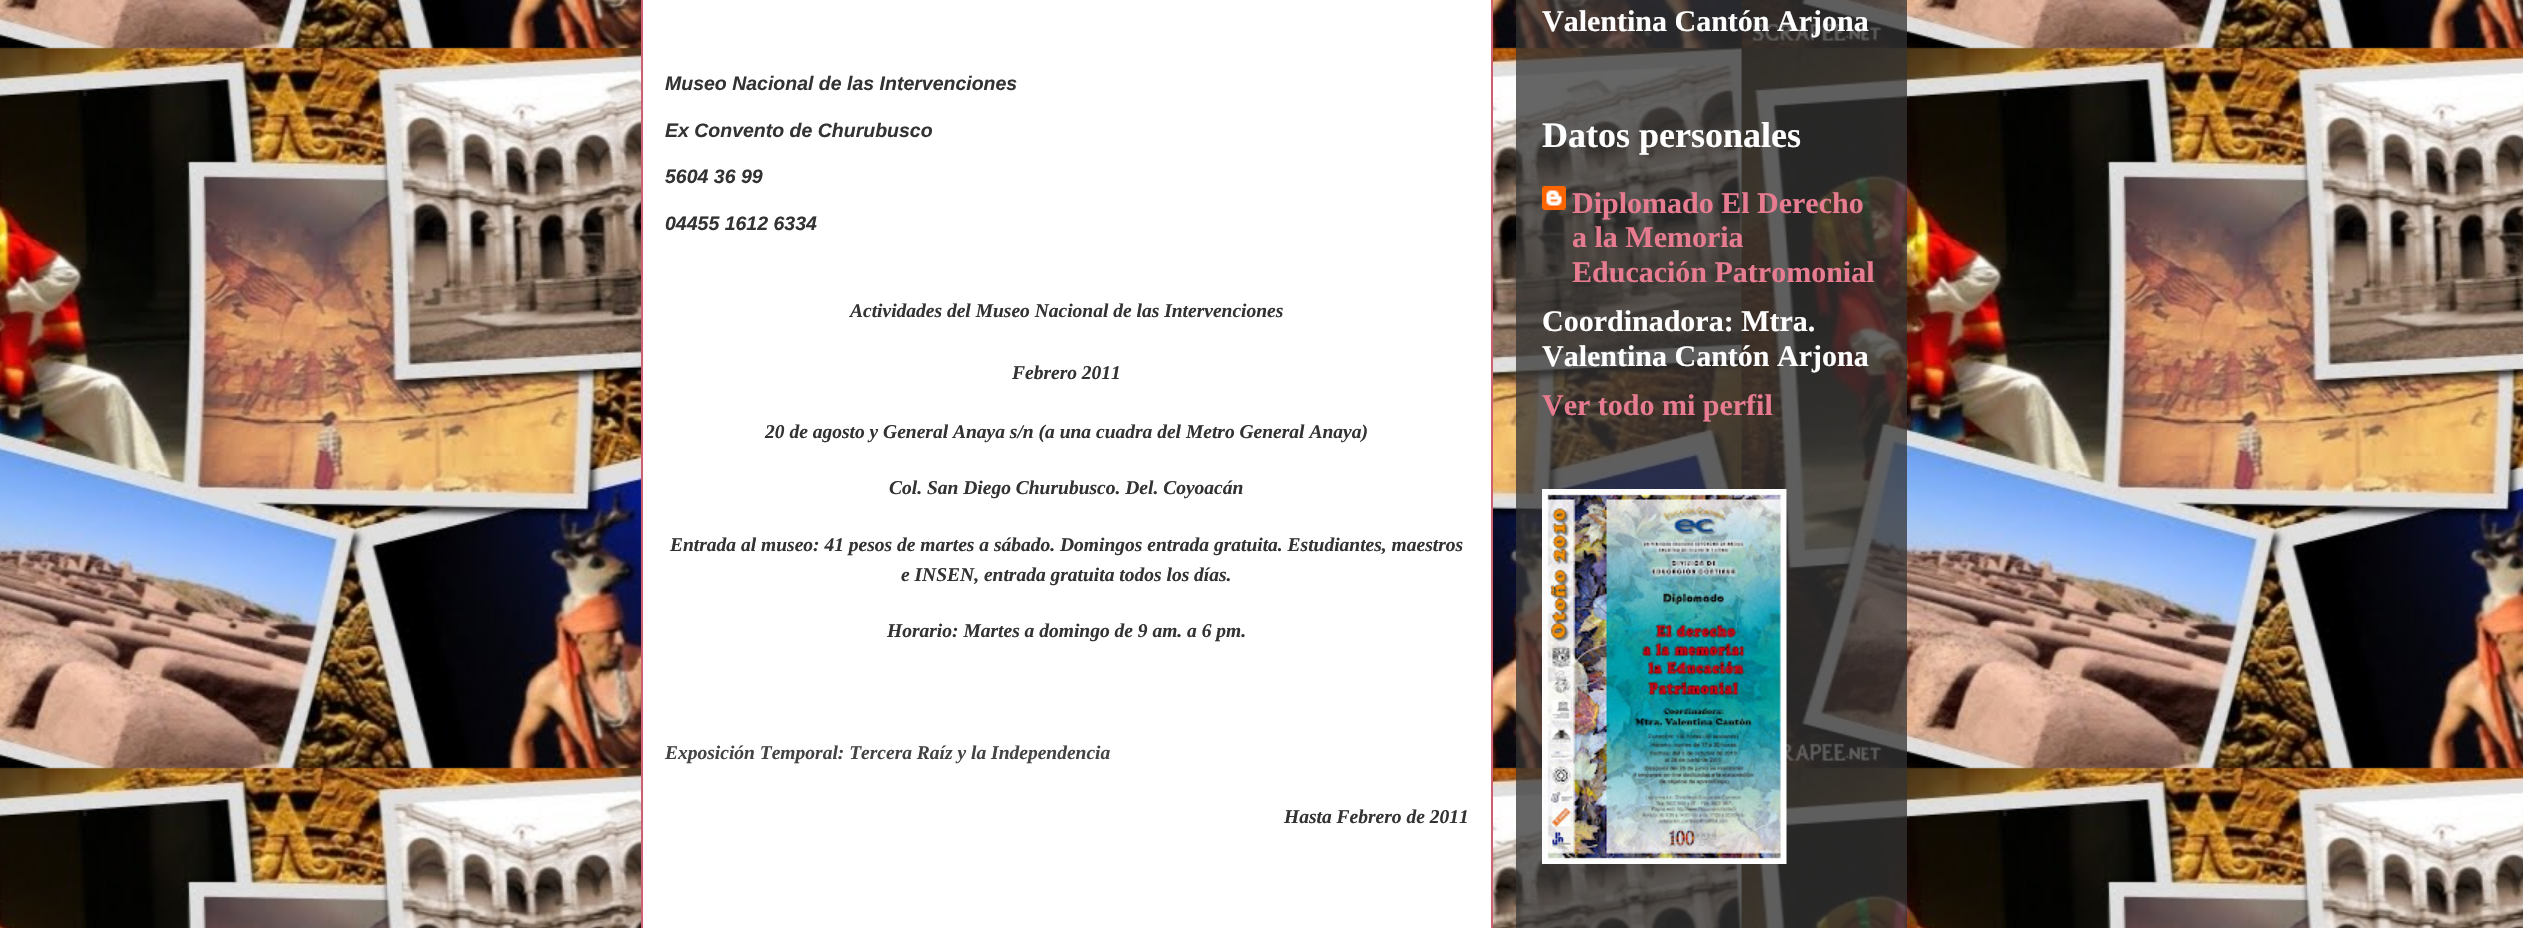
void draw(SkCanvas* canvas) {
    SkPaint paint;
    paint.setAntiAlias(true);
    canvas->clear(0xFFFFFFFF);
    canvas->drawImageRect(SkImages::DeferredFromEncodedData(SkData::MakeFromFileName("img1.png")), SkRect::MakeXYWH(0, 0, 2523, 928), SkSamplingOptions());
    paint.setColor(0xFFFFFFFF);
    canvas->drawRect(SkRect::MakeXYWH(642, -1, 850, 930), paint);
    paint.setStyle(SkPaint::kStroke_Style);
    paint.setStrokeWidth(2);
    paint.setColor(0xFFCE5F70);
    canvas->drawRect(SkRect::MakeXYWH(642, -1, 850, 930), paint);
    SkFont font1(fontMgr->matchFamilyStyle("Liberation Sans", SkFontStyle::BoldItalic()), 19.5f);
    font1.setSubpixel(true);
    paint.setStyle(SkPaint::kFill_Style);
    paint.setColor(0xFF333333);
    canvas->drawString("Museo Nacional de las Intervenciones", 665, 90, font1, paint);
    canvas->drawString("Ex Convento de Churubusco", 665, 137, font1, paint);
    canvas->drawString("5604 36 99", 665, 183, font1, paint);
    canvas->drawString("04455 1612 6334", 665, 230, font1, paint);
    SkFont font2(fontMgr->matchFamilyStyle("Liberation Serif", SkFontStyle::BoldItalic()), 19.5f);
    font2.setSubpixel(true);
    canvas->drawString("Actividades del Museo Nacional de las Intervenciones", 850, 317, font2, paint);
    canvas->drawString("Febrero 2011", 1012, 379, font2, paint);
    canvas->drawString("20 de agosto y General Anaya s/n (a una cuadra del Metro General Anaya)", 765, 438, font2, paint);
    canvas->drawString("Col. San Diego Churubusco. Del. Coyoacán", 889, 494, font2, paint);
    canvas->drawString("Entrada al museo: 41 pesos de martes a sábado. Domingos entrada gratuita. Estudiantes, maestros", 670, 551, font2, paint);
    canvas->drawString("e INSEN, entrada gratuita todos los días.", 901, 581, font2, paint);
    canvas->drawString("Horario: Martes a domingo de 9 am. a 6 pm.", 887, 637, font2, paint);
    paint.setColor(0xFF444444);
    canvas->drawString("Exposición Temporal: Tercera Raíz y la Independencia", 665, 759, font2, paint);
    paint.setColor(0xFF333333);
    canvas->drawString("Hasta Febrero de 2011", 1284, 823, font2, paint);
    paint.setColor(0xBF333333);
    canvas->drawRect(SkRect::MakeXYWH(1516, 0, 391, 928), paint);
    SkFont font3(fontMgr->matchFamilyStyle("Liberation Serif", SkFontStyle::Bold()), 30);
    font3.setSubpixel(true);
    paint.setColor(0xFFFFFFFF);
    canvas->drawString("Valentina Cantón Arjona", 1542, 31, font3, paint);
    SkFont font4(fontMgr->matchFamilyStyle("Liberation Serif", SkFontStyle::Bold()), 36);
    font4.setSubpixel(true);
    canvas->drawString("Datos personales", 1542, 147, font4, paint);
    canvas->drawImageRect(SkImages::DeferredFromEncodedData(SkData::MakeFromFileName("img2.png")), SkRect::MakeXYWH(1542, 186, 24, 24), SkSamplingOptions());
    paint.setColor(0xFFE77B8F);
    canvas->drawString("Diplomado El Derecho", 1572, 213, font3, paint);
    canvas->drawString("a la Memoria", 1572, 247, font3, paint);
    canvas->drawString("Educación Patromonial", 1572, 282, font3, paint);
    paint.setColor(0xFFFFFFFF);
    canvas->drawString("Coordinadora: Mtra.", 1542, 331, font3, paint);
    canvas->drawString("Valentina Cantón Arjona", 1542, 366, font3, paint);
    paint.setColor(0xFFE77B8F);
    canvas->drawString("Ver todo mi perfil", 1542, 415, font3, paint);
    canvas->drawImageRect(SkImages::DeferredFromEncodedData(SkData::MakeFromFileName("img3.png")), SkRect::MakeXYWH(1542, 489, 245, 375), SkSamplingOptions());
}
